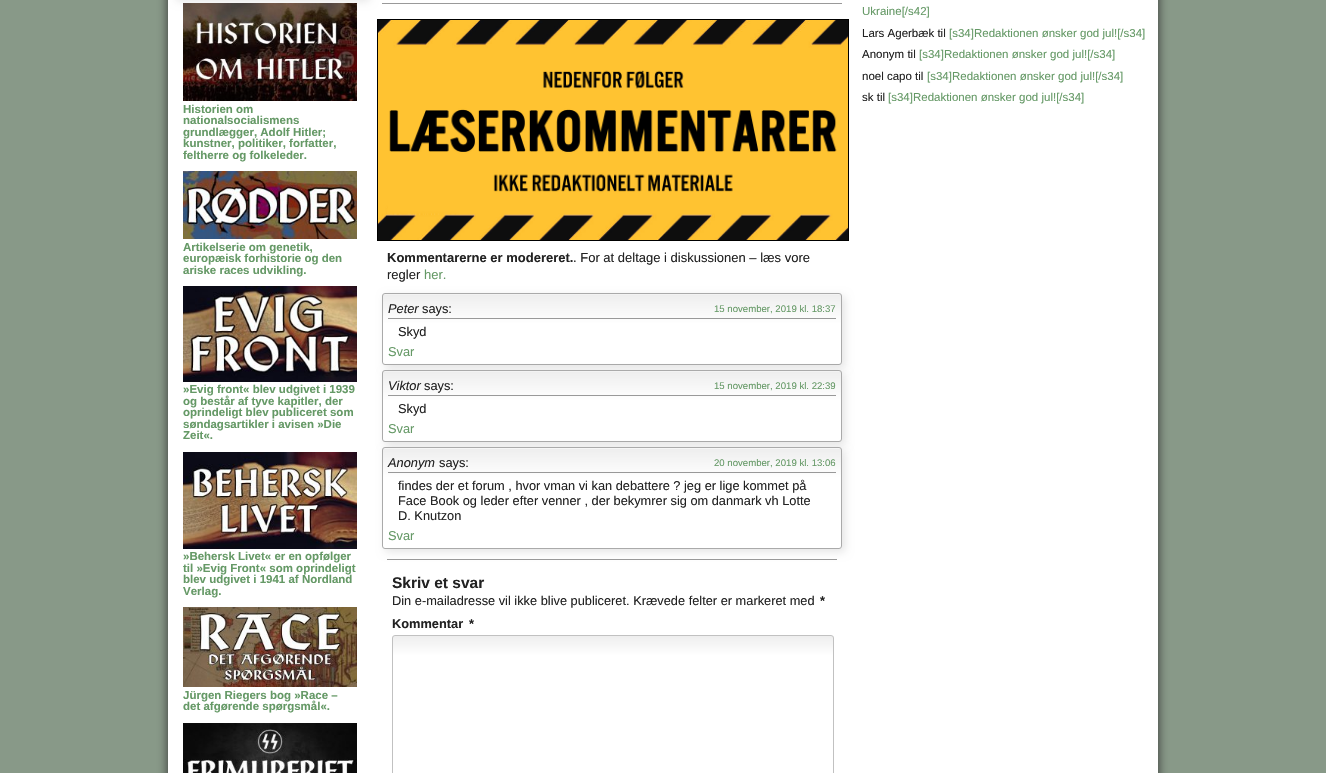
void draw(SkCanvas* canvas) {
    SkPaint paint;
    paint.setAntiAlias(true);
    canvas->clear(0xFF889988);
    paint.setColor(0xFF333333);
    paint.setMaskFilter(SkMaskFilter::MakeBlur(kNormal_SkBlurStyle, 5));
    canvas->drawRect(SkRect::MakeXYWH(168, -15, 990, 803), paint);
    paint.setMaskFilter(nullptr);
    paint.setColor(0xFFFFFFFF);
    canvas->drawRect(SkRect::MakeXYWH(168, 0, 990, 773), paint);
    SkFont font1(fontMgr->matchFamilyStyle("Liberation Sans", SkFontStyle::Normal()), 11.5f);
    font1.setSubpixel(true);
    paint.setColor(0xFF659966);
    canvas->drawString("Ukraine[/s42]", 862, 15, font1, paint);
    paint.setColor(0xFF222222);
    canvas->drawString("Lars Agerbæk til", 862, 37, font1, paint);
    paint.setColor(0xFF659966);
    canvas->drawString("[s34]Redaktionen ønsker god jul![/s34]", 949, 37, font1, paint);
    paint.setColor(0xFF222222);
    canvas->drawString("Anonym til", 862, 58, font1, paint);
    paint.setColor(0xFF659966);
    canvas->drawString("[s34]Redaktionen ønsker god jul![/s34]", 919, 58, font1, paint);
    paint.setColor(0xFF222222);
    canvas->drawString("noel capo til", 862, 80, font1, paint);
    paint.setColor(0xFF659966);
    canvas->drawString("[s34]Redaktionen ønsker god jul![/s34]", 927, 80, font1, paint);
    paint.setColor(0xFF222222);
    canvas->drawString("sk til", 862, 101, font1, paint);
    paint.setColor(0xFF659966);
    canvas->drawString("[s34]Redaktionen ønsker god jul![/s34]", 888, 101, font1, paint);
    paint.setColor(0x1A000000);
    paint.setMaskFilter(SkMaskFilter::MakeBlur(kNormal_SkBlurStyle, 4));
    canvas->drawRoundRect(SkRect::MakeXYWH(176, -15, 194, 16), 3, 3, paint);
    paint.setMaskFilter(nullptr);
    canvas->drawImageRect(SkImages::DeferredFromEncodedData(SkData::MakeFromFileName("img1.png")), SkRect::MakeXYWH(183, 3, 174, 98), SkSamplingOptions());
    SkFont font2(fontMgr->matchFamilyStyle("Liberation Sans", SkFontStyle::Bold()), 11.5f);
    font2.setSubpixel(true);
    paint.setColor(0xFF659966);
    canvas->drawString("Historien om", 183, 113, font2, paint);
    canvas->drawString("nationalsocialismens", 183, 124, font2, paint);
    canvas->drawString("grundlægger, Adolf Hitler;", 183, 136, font2, paint);
    canvas->drawString("kunstner, politiker, forfatter,", 183, 147, font2, paint);
    canvas->drawString("feltherre og folkeleder.", 183, 159, font2, paint);
    canvas->drawImageRect(SkImages::DeferredFromEncodedData(SkData::MakeFromFileName("img2.png")), SkRect::MakeXYWH(183, 171, 174, 68), SkSamplingOptions());
    canvas->drawString("Artikelserie om genetik,", 183, 251, font2, paint);
    canvas->drawString("europæisk forhistorie og den", 183, 262, font2, paint);
    canvas->drawString("ariske races udvikling.", 183, 274, font2, paint);
    canvas->drawImageRect(SkImages::DeferredFromEncodedData(SkData::MakeFromFileName("img3.png")), SkRect::MakeXYWH(183, 286, 174, 96), SkSamplingOptions());
    canvas->drawString("»Evig front« blev udgivet i 1939", 183, 393, font2, paint);
    canvas->drawString("og består af tyve kapitler, der", 183, 405, font2, paint);
    canvas->drawString("oprindeligt blev publiceret som", 183, 416, font2, paint);
    canvas->drawString("søndagsartikler i avisen »Die", 183, 428, font2, paint);
    canvas->drawString("Zeit«.", 183, 439, font2, paint);
    canvas->drawImageRect(SkImages::DeferredFromEncodedData(SkData::MakeFromFileName("img4.png")), SkRect::MakeXYWH(183, 452, 174, 97), SkSamplingOptions());
    canvas->drawString("»Behersk Livet« er en opfølger", 183, 560, font2, paint);
    canvas->drawString("til »Evig Front« som oprindeligt", 183, 572, font2, paint);
    canvas->drawString("blev udgivet i 1941 af Nordland", 183, 583, font2, paint);
    canvas->drawString("Verlag.", 183, 595, font2, paint);
    canvas->drawImageRect(SkImages::DeferredFromEncodedData(SkData::MakeFromFileName("img5.png")), SkRect::MakeXYWH(183, 607, 174, 80), SkSamplingOptions());
    canvas->drawString("Jürgen Riegers bog »Race –", 183, 699, font2, paint);
    canvas->drawString("det afgørende spørgsmål«.", 183, 710, font2, paint);
    canvas->drawImageRect(SkImages::DeferredFromEncodedData(SkData::MakeFromFileName("img6.png")), SkRect::MakeXYWH(183, 723, 174, 50), SkSamplingOptions());
    paint.setColor(0xFF999999);
    canvas->drawRect(SkRect::MakeXYWH(382, 3, 460, 1), paint);
    paint.setStyle(SkPaint::kStroke_Style);
    paint.setStrokeWidth(1);
    paint.setColor(0xFF000000);
    canvas->drawRect(SkRect::MakeXYWH(377.5f, 19.5f, 471, 221), paint);
    canvas->drawImageRect(SkImages::DeferredFromEncodedData(SkData::MakeFromFileName("img7.png")), SkRect::MakeXYWH(378, 20, 470, 220), SkSamplingOptions());
    SkFont font3(fontMgr->matchFamilyStyle("Liberation Sans", SkFontStyle::Bold()), 13);
    font3.setSubpixel(true);
    paint.setStyle(SkPaint::kFill_Style);
    paint.setColor(0xFF222222);
    canvas->drawString("Kommentarerne er modereret.", 387, 262, font3, paint);
    SkFont font4(fontMgr->matchFamilyStyle("Liberation Sans", SkFontStyle::Normal()), 13);
    font4.setSubpixel(true);
    canvas->drawString(". For at deltage i diskussionen – læs vore", 573, 262, font4, paint);
    canvas->drawString("regler", 387, 279, font4, paint);
    paint.setColor(0xFF659966);
    canvas->drawString("her.", 424, 279, font4, paint);
    paint.setColor(0x1A000000);
    paint.setMaskFilter(SkMaskFilter::MakeBlur(kNormal_SkBlurStyle, 4));
    canvas->drawRoundRect(SkRect::MakeXYWH(385, 296, 460, 72), 3, 3, paint);
    paint.setMaskFilter(nullptr);
    canvas->save();
    canvas->clipPath(SkPathBuilder().moveTo(385, 293).lineTo(839, 293).cubicTo(840.5f, 293, 842, 294.5f, 842, 296).lineTo(842, 362).cubicTo(842, 363.5f, 840.5f, 365, 839, 365).lineTo(385, 365).cubicTo(383.5f, 365, 382, 363.5f, 382, 362).lineTo(382, 296).cubicTo(382, 294.5f, 383.5f, 293, 385, 293).close().detach(), true);
    {
        const SkColor colors[] = {0xFFFFFFFF, 0xFFEEEEEE, 0xFFFFFFFF};
        const float stops[] = {0, 0.01f, 0.43f};
        const SkPoint ends[] = {{612, 294}, {612, 364}};
        paint.setShader(SkGradientShader::MakeLinear(ends, colors, stops, 3, SkTileMode::kClamp));
        paint.setAlpha(255);
    }
    canvas->drawRect(SkRect::MakeXYWH(382, 294, 460, 70), paint);
    canvas->restore();
    paint.setStyle(SkPaint::kStroke_Style);
    paint.setShader(nullptr);
    paint.setColor(0xFFAAAAAA);
    canvas->drawRoundRect(SkRect::MakeXYWH(382.5f, 293.5f, 459, 71), 2.5f, 2.5f, paint);
    paint.setStyle(SkPaint::kFill_Style);
    paint.setColor(0xFF999999);
    canvas->drawRect(SkRect::MakeXYWH(388, 318, 448, 1), paint);
    SkFont font5(fontMgr->matchFamilyStyle("Liberation Sans", SkFontStyle::Italic()), 12.8f);
    font5.setSubpixel(true);
    paint.setColor(0xFF222222);
    canvas->drawString("Peter", 388, 313, font5, paint);
    SkFont font6(fontMgr->matchFamilyStyle("Liberation Sans", SkFontStyle::Normal()), 12.8f);
    font6.setSubpixel(true);
    canvas->drawString("says:", 422, 313, font6, paint);
    SkFont font7(fontMgr->matchFamilyStyle("Liberation Sans", SkFontStyle::Normal()), 9.6f);
    font7.setSubpixel(true);
    paint.setColor(0xFF659966);
    canvas->drawString("15 november, 2019 kl. 18:37", 714, 312, font7, paint);
    paint.setColor(0xFF222222);
    canvas->drawString("Skyd", 398, 336, font6, paint);
    paint.setColor(0xFF659966);
    canvas->drawString("Svar", 388, 356, font6, paint);
    paint.setColor(0x1A000000);
    paint.setMaskFilter(SkMaskFilter::MakeBlur(kNormal_SkBlurStyle, 4));
    canvas->drawRoundRect(SkRect::MakeXYWH(385, 373, 460, 72), 3, 3, paint);
    paint.setMaskFilter(nullptr);
    canvas->save();
    canvas->clipPath(SkPathBuilder().moveTo(385, 370).lineTo(839, 370).cubicTo(840.5f, 370, 842, 371.5f, 842, 373).lineTo(842, 439).cubicTo(842, 440.5f, 840.5f, 442, 839, 442).lineTo(385, 442).cubicTo(383.5f, 442, 382, 440.5f, 382, 439).lineTo(382, 373).cubicTo(382, 371.5f, 383.5f, 370, 385, 370).close().detach(), true);
    {
        const SkColor colors[] = {0xFFFFFFFF, 0xFFEEEEEE, 0xFFFFFFFF};
        const float stops[] = {0, 0.01f, 0.43f};
        const SkPoint ends[] = {{612, 371}, {612, 441}};
        paint.setShader(SkGradientShader::MakeLinear(ends, colors, stops, 3, SkTileMode::kClamp));
        paint.setAlpha(255);
    }
    canvas->drawRect(SkRect::MakeXYWH(382, 371, 460, 70), paint);
    canvas->restore();
    paint.setStyle(SkPaint::kStroke_Style);
    paint.setShader(nullptr);
    paint.setColor(0xFFAAAAAA);
    canvas->drawRoundRect(SkRect::MakeXYWH(382.5f, 370.5f, 459, 71), 2.5f, 2.5f, paint);
    paint.setStyle(SkPaint::kFill_Style);
    paint.setColor(0xFF999999);
    canvas->drawRect(SkRect::MakeXYWH(388, 395, 448, 1), paint);
    paint.setColor(0xFF222222);
    canvas->drawString("Viktor", 388, 390, font5, paint);
    canvas->drawString("says:", 424, 390, font6, paint);
    paint.setColor(0xFF659966);
    canvas->drawString("15 november, 2019 kl. 22:39", 714, 389, font7, paint);
    paint.setColor(0xFF222222);
    canvas->drawString("Skyd", 398, 413, font6, paint);
    paint.setColor(0xFF659966);
    canvas->drawString("Svar", 388, 433, font6, paint);
    paint.setColor(0x1A000000);
    paint.setMaskFilter(SkMaskFilter::MakeBlur(kNormal_SkBlurStyle, 4));
    canvas->drawRoundRect(SkRect::MakeXYWH(385, 450, 460, 102), 3, 3, paint);
    paint.setMaskFilter(nullptr);
    canvas->save();
    canvas->clipPath(SkPathBuilder().moveTo(385, 447).lineTo(839, 447).cubicTo(840.5f, 447, 842, 448.5f, 842, 450).lineTo(842, 546).cubicTo(842, 547.5f, 840.5f, 549, 839, 549).lineTo(385, 549).cubicTo(383.5f, 549, 382, 547.5f, 382, 546).lineTo(382, 450).cubicTo(382, 448.5f, 383.5f, 447, 385, 447).close().detach(), true);
    {
        const SkColor colors[] = {0xFFFFFFFF, 0xFFEEEEEE, 0xFFFFFFFF};
        const float stops[] = {0, 0.01f, 0.3f};
        const SkPoint ends[] = {{612, 448}, {612, 548}};
        paint.setShader(SkGradientShader::MakeLinear(ends, colors, stops, 3, SkTileMode::kClamp));
        paint.setAlpha(255);
    }
    canvas->drawRect(SkRect::MakeXYWH(382, 448, 460, 100), paint);
    canvas->restore();
    paint.setStyle(SkPaint::kStroke_Style);
    paint.setShader(nullptr);
    paint.setColor(0xFFAAAAAA);
    canvas->drawRoundRect(SkRect::MakeXYWH(382.5f, 447.5f, 459, 101), 2.5f, 2.5f, paint);
    paint.setStyle(SkPaint::kFill_Style);
    paint.setColor(0xFF999999);
    canvas->drawRect(SkRect::MakeXYWH(388, 472, 448, 1), paint);
    paint.setColor(0xFF222222);
    canvas->drawString("Anonym", 388, 467, font5, paint);
    canvas->drawString("says:", 439, 467, font6, paint);
    paint.setColor(0xFF659966);
    canvas->drawString("20 november, 2019 kl. 13:06", 714, 466, font7, paint);
    paint.setColor(0xFF222222);
    canvas->drawString("findes der et forum , hvor vman vi kan debattere ? jeg er lige kommet på", 398, 490, font6, paint);
    canvas->drawString("Face Book og leder efter venner , der bekymrer sig om danmark vh Lotte", 398, 505, font6, paint);
    canvas->drawString("D. Knutzon", 398, 520, font6, paint);
    paint.setColor(0xFF659966);
    canvas->drawString("Svar", 388, 540, font6, paint);
    paint.setColor(0xFF999999);
    canvas->drawRect(SkRect::MakeXYWH(387, 559, 450, 1), paint);
    SkFont font8(fontMgr->matchFamilyStyle("Liberation Sans", SkFontStyle::Bold()), 15.5f);
    font8.setSubpixel(true);
    paint.setColor(0xFF222222);
    canvas->drawString("Skriv et svar", 392, 588, font8, paint);
    canvas->drawString("Din e-mailadresse vil ikke blive publiceret. Krævede felter er markeret med", 392, 605, font6, paint);
    SkFont font9(fontMgr->matchFamilyStyle("Liberation Sans", SkFontStyle::Bold()), 12.8f);
    font9.setSubpixel(true);
    canvas->drawString("*", 820, 605, font9, paint);
    canvas->drawString("Kommentar", 392, 628, font9, paint);
    canvas->drawString("*", 469, 628, font9, paint);
    canvas->save();
    canvas->clipPath(SkPathBuilder().moveTo(395, 635).lineTo(831, 635).cubicTo(832.5f, 635, 834, 636.5f, 834, 638).lineTo(834, 854).cubicTo(834, 855.5f, 832.5f, 857, 831, 857).lineTo(395, 857).cubicTo(393.5f, 857, 392, 855.5f, 392, 854).lineTo(392, 638).cubicTo(392, 636.5f, 393.5f, 635, 395, 635).close().detach(), true);
    {
        const SkColor colors[] = {0xFFFFFFFF, 0xFFEEEEEE, 0xFFFFFFFF};
        const float stops[] = {0, 0, 0.09f};
        const SkPoint ends[] = {{613, 636}, {613, 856}};
        paint.setShader(SkGradientShader::MakeLinear(ends, colors, stops, 3, SkTileMode::kClamp));
        paint.setAlpha(255);
    }
    canvas->drawRect(SkRect::MakeXYWH(392, 636, 442, 137), paint);
    canvas->restore();
    paint.setStyle(SkPaint::kStroke_Style);
    paint.setShader(nullptr);
    paint.setColor(0xFFC1C1C1);
    canvas->drawRoundRect(SkRect::MakeXYWH(392.5f, 635.5f, 441, 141), 2.5f, 2.5f, paint);
}
